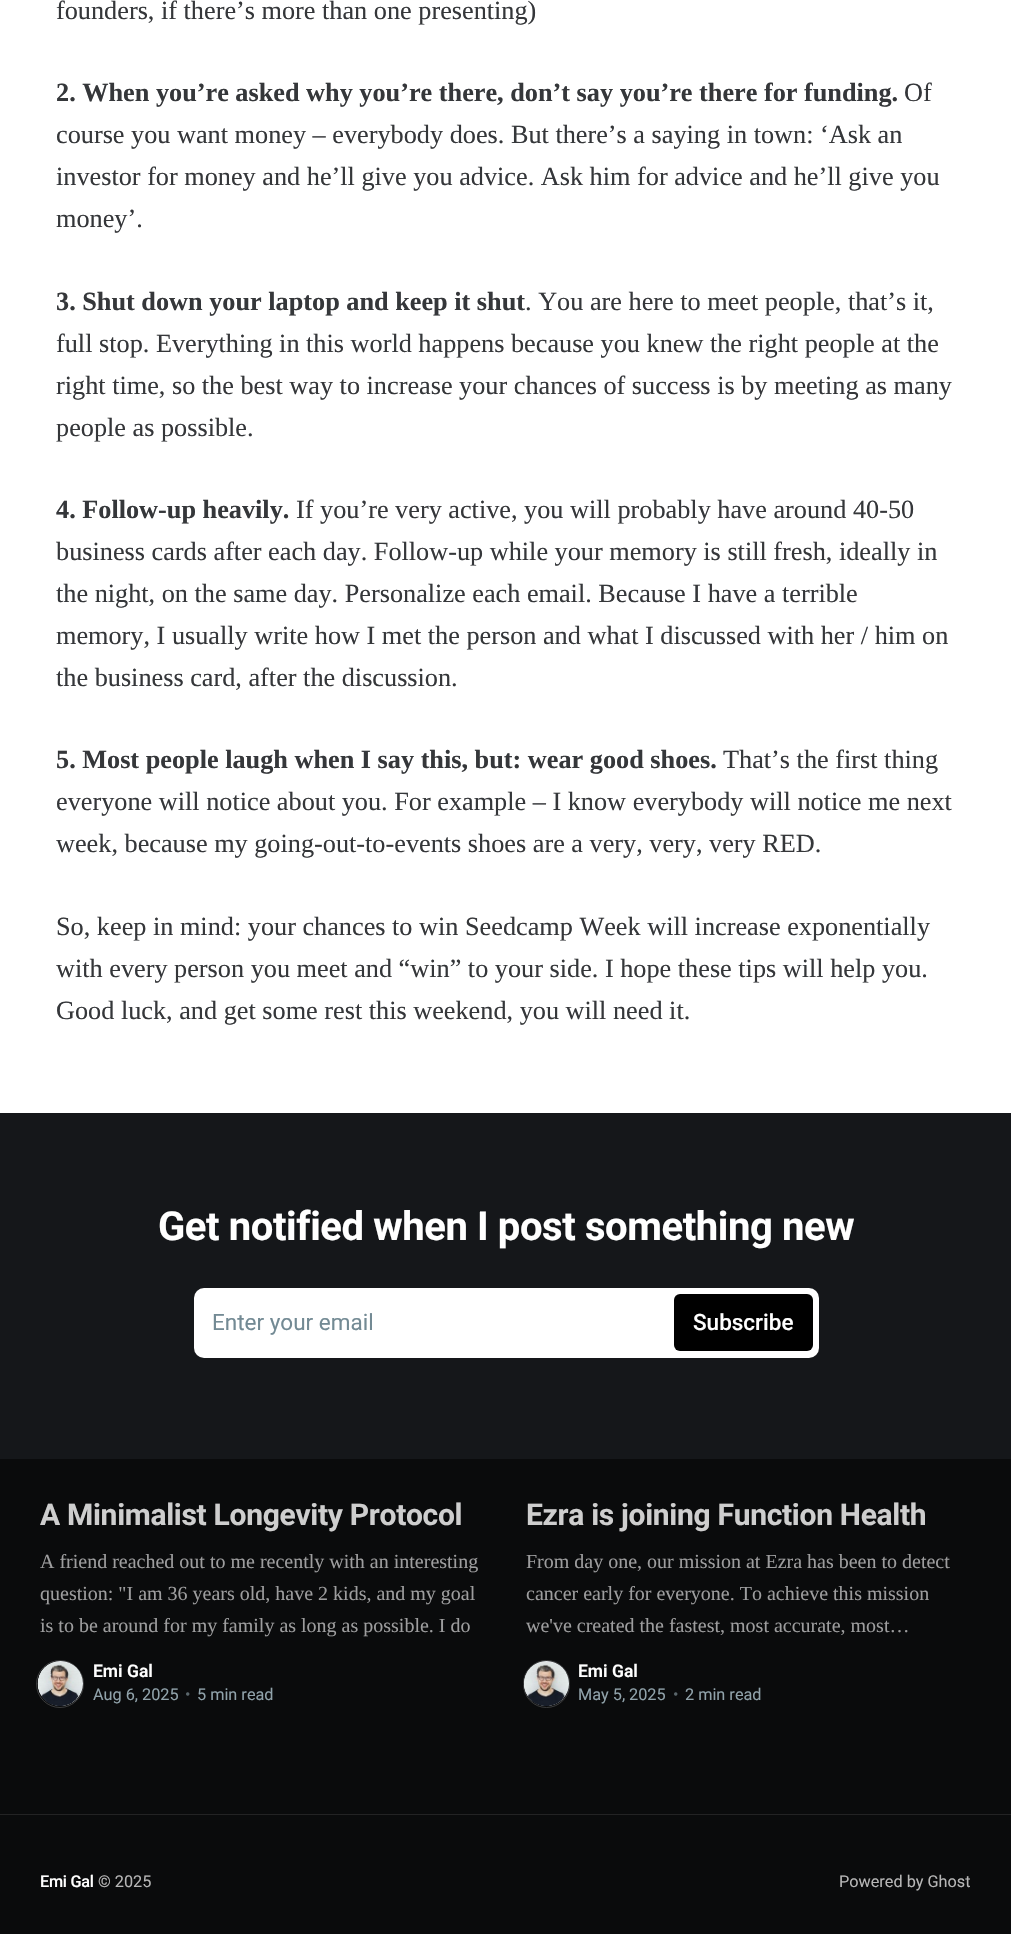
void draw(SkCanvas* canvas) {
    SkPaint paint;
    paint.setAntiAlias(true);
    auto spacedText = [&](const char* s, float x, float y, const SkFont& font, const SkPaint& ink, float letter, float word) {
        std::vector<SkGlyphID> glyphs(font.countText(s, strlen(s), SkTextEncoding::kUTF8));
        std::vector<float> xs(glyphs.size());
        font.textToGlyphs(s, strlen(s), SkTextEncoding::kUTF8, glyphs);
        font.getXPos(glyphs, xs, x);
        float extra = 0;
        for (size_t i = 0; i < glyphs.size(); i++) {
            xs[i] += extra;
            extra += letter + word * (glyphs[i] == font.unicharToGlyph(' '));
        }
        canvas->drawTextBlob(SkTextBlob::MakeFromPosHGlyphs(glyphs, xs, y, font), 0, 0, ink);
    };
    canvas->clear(0xFFFFFFFF);
    SkFont font1(fontMgr->matchFamilyStyle("Liberation Serif", SkFontStyle::Normal()), 26.25f);
    font1.setSubpixel(true);
    paint.setColor(0xFF35373A);
    canvas->drawString("founders, if there’s more than one presenting)", 56, 19, font1, paint);
    SkFont font2(fontMgr->matchFamilyStyle("Liberation Serif", SkFontStyle::Bold()), 26.25f);
    font2.setSubpixel(true);
    canvas->drawString("2. When you’re asked why you’re there, don’t say you’re there for funding.", 56, 101, font2, paint);
    canvas->drawString("Of", 904, 101, font1, paint);
    canvas->drawString("course you want money – everybody does. But there’s a saying in town: ‘Ask an", 56, 143, font1, paint);
    canvas->drawString("investor for money and he’ll give you advice. Ask him for advice and he’ll give you", 56, 185, font1, paint);
    canvas->drawString("money’.", 56, 227, font1, paint);
    canvas->drawString("3. Shut down your laptop and keep it shut", 56, 310, font2, paint);
    canvas->drawString(". You are here to meet people, that’s it,", 525, 310, font1, paint);
    canvas->drawString("full stop. Everything in this world happens because you knew the right people at the", 56, 352, font1, paint);
    canvas->drawString("right time, so the best way to increase your chances of success is by meeting as many", 56, 394, font1, paint);
    canvas->drawString("people as possible.", 56, 436, font1, paint);
    canvas->drawString("4. Follow-up heavily.", 56, 518, font2, paint);
    canvas->drawString("If you’re very active, you will probably have around 40-50", 296, 518, font1, paint);
    canvas->drawString("business cards after each day. Follow-up while your memory is still fresh, ideally in", 56, 560, font1, paint);
    canvas->drawString("the night, on the same day. Personalize each email. Because I have a terrible", 56, 602, font1, paint);
    canvas->drawString("memory, I usually write how I met the person and what I discussed with her / him on", 56, 644, font1, paint);
    canvas->drawString("the business card, after the discussion.", 56, 686, font1, paint);
    canvas->drawString("5. Most people laugh when I say this, but: wear good shoes.", 56, 768, font2, paint);
    canvas->drawString("That’s the first thing", 723, 768, font1, paint);
    canvas->drawString("everyone will notice about you. For example – I know everybody will notice me next", 56, 810, font1, paint);
    canvas->drawString("week, because my going-out-to-events shoes are a very, very, very RED.", 56, 852, font1, paint);
    canvas->drawString("So, keep in mind: your chances to win Seedcamp Week will increase exponentially", 56, 935, font1, paint);
    canvas->drawString("with every person you meet and “win” to your side. I hope these tips will help you.", 56, 977, font1, paint);
    canvas->drawString("Good luck, and get some rest this weekend, you will need it.", 56, 1019, font1, paint);
    paint.setColor(0xFF15171A);
    canvas->drawRect(SkRect::MakeXYWH(0, 1113, 1011, 346), paint);
    SkFont font3(fontMgr->matchFamilyStyle("Roboto", SkFontStyle::Bold()), 40);
    font3.setSubpixel(true);
    paint.setColor(0xFFFFFFFF);
    spacedText("Get notified when I post something new", 158, 1240, font3, paint, -0.4f, 0);
    canvas->drawRoundRect(SkRect::MakeXYWH(194, 1288, 625, 70), 10, 10, paint);
    SkFont font4(fontMgr->matchFamilyStyle("Roboto", SkFontStyle::Normal()), 22.5f);
    font4.setSubpixel(true);
    paint.setColor(0xFF738A94);
    canvas->drawString("Enter your email", 212, 1330, font4, paint);
    paint.setColor(0xFF000000);
    canvas->drawRoundRect(SkRect::MakeXYWH(674, 1294, 139, 57), 6, 6, paint);
    SkFont font5(fontMgr->matchFamilyStyle("Roboto", SkFontStyle(500, SkFontStyle::kNormal_Width, SkFontStyle::kUpright_Slant)), 22.5f);
    font5.setSubpixel(true);
    paint.setColor(0xFFFFFFFF);
    canvas->drawString("Subscribe", 693, 1330, font5, paint);
    paint.setColor(0xFF0A0B0C);
    canvas->drawRect(SkRect::MakeXYWH(0, 1459, 1011, 355), paint);
    paint.setColor(0xFF232324);
    canvas->drawRect(SkRect::MakeXYWH(0, 1814, 1011, 1), paint);
    SkFont font6(fontMgr->matchFamilyStyle("Roboto", SkFontStyle::Bold()), 30);
    font6.setSubpixel(true);
    paint.setColor(0xFFCECECE);
    spacedText("A Minimalist Longevity Protocol", 40, 1525, font6, paint, -0.3f, 0);
    SkFont font7(fontMgr->matchFamilyStyle("Liberation Serif", SkFontStyle::Normal()), 20);
    font7.setSubpixel(true);
    paint.setColor(0xFF9D9D9E);
    canvas->drawString("A friend reached out to me recently with an interesting", 40, 1568, font7, paint);
    canvas->drawString("question: \"I am 36 years old, have 2 kids, and my goal", 40, 1600, font7, paint);
    canvas->drawString("is to be around for my family as long as possible. I do", 40, 1632, font7, paint);
    paint.setStyle(SkPaint::kStroke_Style);
    paint.setStrokeWidth(1);
    paint.setColor(0xFF3B3C3D);
    canvas->drawCircle(60, 1684, 23.5f, paint);
    paint.setStyle(SkPaint::kFill_Style);
    paint.setColor(0xFFE4EAED);
    canvas->drawCircle(60.5f, 1683.5f, 22.5f, paint);
    canvas->drawImageRect(SkImages::DeferredFromEncodedData(SkData::MakeFromFileName("img1.png")), SkRect::MakeXYWH(37, 1661, 45, 45), SkSamplingOptions());
    SkFont font8(fontMgr->matchFamilyStyle("Roboto", SkFontStyle(600, SkFontStyle::kNormal_Width, SkFontStyle::kUpright_Slant)), 17.5f);
    font8.setSubpixel(true);
    paint.setColor(0xFFFFFFFF);
    canvas->drawString("Emi Gal", 93, 1677, font8, paint);
    SkFont font9(fontMgr->matchFamilyStyle("Roboto", SkFontStyle::Normal()), 16.25f);
    font9.setSubpixel(true);
    paint.setColor(0xFF90A2AA);
    canvas->drawString("Aug 6, 2025", 93, 1700, font9, paint);
    paint.setColor(0xFF5A666B);
    canvas->drawString("•", 185, 1700, font9, paint);
    paint.setColor(0xFF90A2AA);
    canvas->drawString("5 min read", 197, 1700, font9, paint);
    paint.setColor(0xFFCECECE);
    spacedText("Ezra is joining Function Health", 526, 1525, font6, paint, -0.3f, 0);
    paint.setColor(0xFF9D9D9E);
    canvas->drawString("From day one, our mission at Ezra has been to detect", 526, 1568, font7, paint);
    canvas->drawString("cancer early for everyone. To achieve this mission", 526, 1600, font7, paint);
    canvas->drawString("we've created the fastest, most accurate, most…", 526, 1632, font7, paint);
    paint.setStyle(SkPaint::kStroke_Style);
    paint.setColor(0xFF3B3C3D);
    canvas->drawRoundRect(SkRect::MakeXYWH(523.5f, 1660.5f, 46, 47), 23, 23, paint);
    paint.setStyle(SkPaint::kFill_Style);
    paint.setColor(0xFFE4EAED);
    canvas->drawCircle(546.5f, 1683.5f, 22.5f, paint);
    canvas->drawImageRect(SkImages::DeferredFromEncodedData(SkData::MakeFromFileName("img2.png")), SkRect::MakeXYWH(524, 1661, 45, 45), SkSamplingOptions());
    paint.setColor(0xFFFFFFFF);
    canvas->drawString("Emi Gal", 578, 1677, font8, paint);
    paint.setColor(0xFF90A2AA);
    canvas->drawString("May 5, 2025", 578, 1700, font9, paint);
    paint.setColor(0xFF5A666B);
    canvas->drawString("•", 673, 1700, font9, paint);
    paint.setColor(0xFF90A2AA);
    canvas->drawString("2 min read", 685, 1700, font9, paint);
    paint.setColor(0xFF0A0B0C);
    canvas->drawRect(SkRect::MakeXYWH(0, 1815, 1011, 119), paint);
    SkFont font10(fontMgr->matchFamilyStyle("Roboto", SkFontStyle(500, SkFontStyle::kNormal_Width, SkFontStyle::kUpright_Slant)), 16.25f);
    font10.setSubpixel(true);
    paint.setColor(0xFFFFFFFF);
    spacedText("Emi Gal", 40, 1887, font10, paint, -0.25f, 0);
    paint.setColor(0xFFB6B6B6);
    canvas->drawString("© 2025", 98, 1887, font9, paint);
    canvas->drawString("Powered by Ghost", 839, 1887, font9, paint);
}
